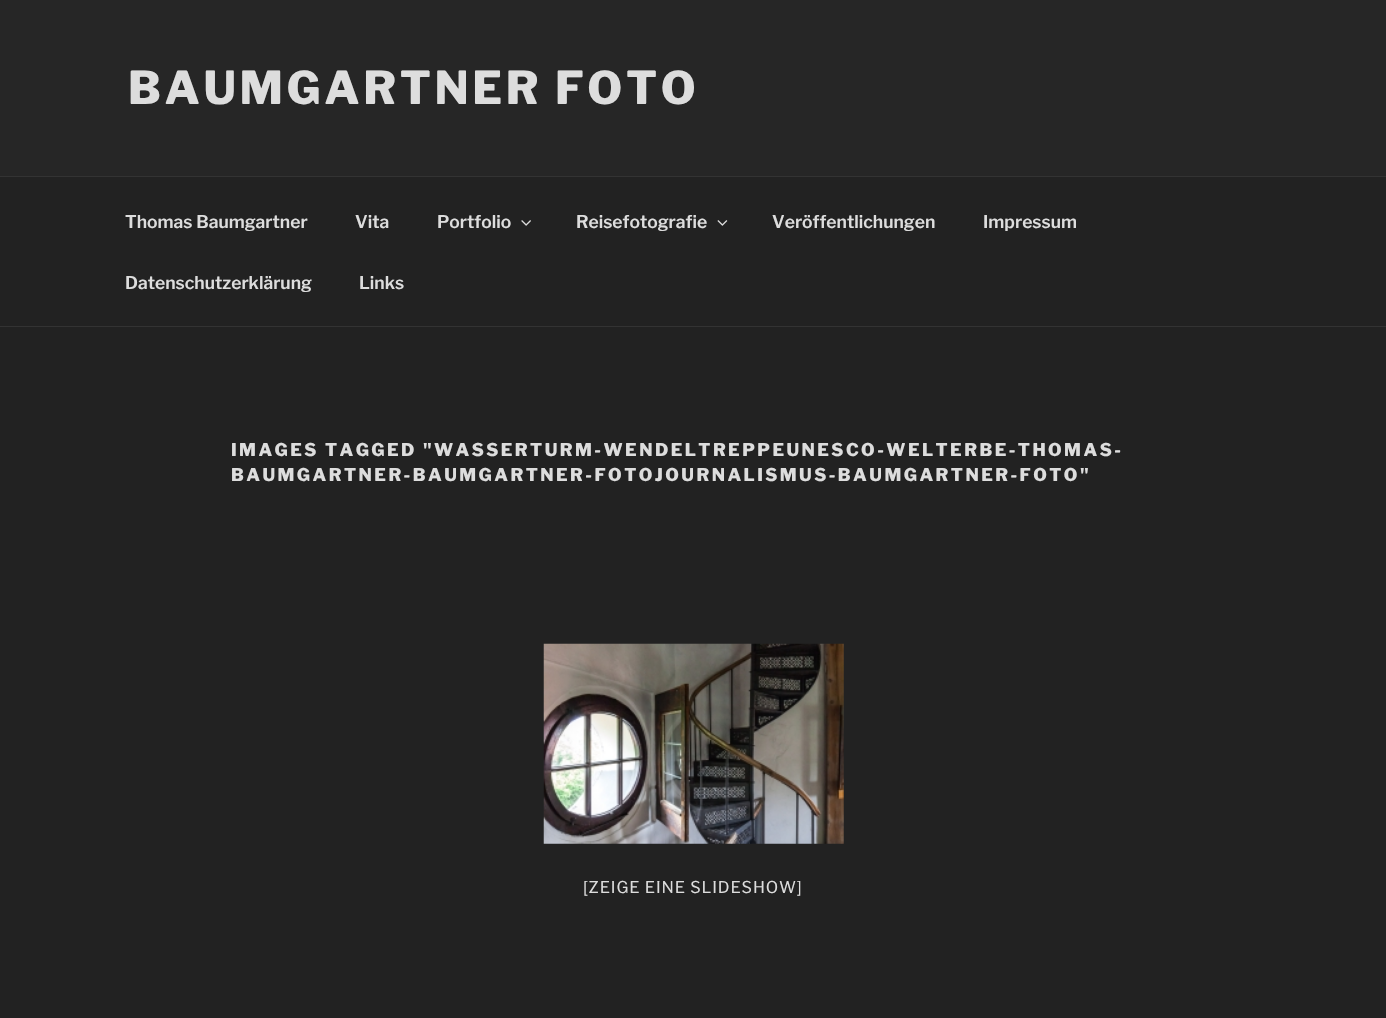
void draw(SkCanvas* canvas) {
    SkPaint paint;
    paint.setAntiAlias(true);
    auto spacedText = [&](const char* s, float x, float y, const SkFont& font, const SkPaint& ink, float letter, float word) {
        std::vector<SkGlyphID> glyphs(font.countText(s, strlen(s), SkTextEncoding::kUTF8));
        std::vector<float> xs(glyphs.size());
        font.textToGlyphs(s, strlen(s), SkTextEncoding::kUTF8, glyphs);
        font.getXPos(glyphs, xs, x);
        float extra = 0;
        for (size_t i = 0; i < glyphs.size(); i++) {
            xs[i] += extra;
            extra += letter + word * (glyphs[i] == font.unicharToGlyph(' '));
        }
        canvas->drawTextBlob(SkTextBlob::MakeFromPosHGlyphs(glyphs, xs, y, font), 0, 0, ink);
    };
    canvas->clear(0xFF222222);
    paint.setColor(0xFF262626);
    canvas->drawRect(SkRect::MakeXYWH(0, 0, 1386, 176), paint);
    SkFont font1(fontMgr->matchFamilyStyle("Libre Franklin", SkFontStyle(800, SkFontStyle::kNormal_Width, SkFontStyle::kUpright_Slant)), 45);
    font1.setSubpixel(true);
    paint.setColor(0xFFDDDDDD);
    spacedText("BAUMGARTNER FOTO", 128, 104, font1, paint, 3.6f, 0);
    paint.setColor(0xFF333333);
    canvas->drawRect(SkRect::MakeXYWH(0, 176, 1386, 1), paint);
    canvas->drawRect(SkRect::MakeXYWH(0, 326, 1386, 1), paint);
    SkFont font2(fontMgr->matchFamilyStyle("Libre Franklin", SkFontStyle(600, SkFontStyle::kNormal_Width, SkFontStyle::kUpright_Slant)), 17.5f);
    font2.setSubpixel(true);
    paint.setColor(0xFFDDDDDD);
    canvas->drawString("Thomas Baumgartner", 125, 228, font2, paint);
    canvas->drawString("Vita", 355, 228, font2, paint);
    canvas->drawString("Portfolio", 437, 228, font2, paint);
    canvas->drawImageRect(SkImages::DeferredFromEncodedData(SkData::MakeFromFileName("img1.png")), SkRect::MakeXYWH(521, 220, 10, 6), SkSamplingOptions());
    canvas->drawString("Reisefotografie", 576, 228, font2, paint);
    canvas->drawImageRect(SkImages::DeferredFromEncodedData(SkData::MakeFromFileName("img2.png")), SkRect::MakeXYWH(717, 220, 11, 6), SkSamplingOptions());
    canvas->drawString("Veröffentlichungen", 772, 228, font2, paint);
    canvas->drawString("Impressum", 983, 228, font2, paint);
    canvas->drawString("Datenschutzerklärung", 125, 289, font2, paint);
    canvas->drawString("Links", 359, 289, font2, paint);
    SkFont font3(fontMgr->matchFamilyStyle("Libre Franklin", SkFontStyle(800, SkFontStyle::kNormal_Width, SkFontStyle::kUpright_Slant)), 17.5f);
    font3.setSubpixel(true);
    spacedText("IMAGES TAGGED \"WASSERTURM-WENDELTREPPEUNESCO-WELTERBE-THOMAS-", 231, 456, font3, paint, 2.45f, 0);
    spacedText("BAUMGARTNER-BAUMGARTNER-FOTOJOURNALISMUS-BAUMGARTNER-FOTO\"", 231, 481, font3, paint, 2.45f, 0);
    canvas->drawImageRect(SkImages::DeferredFromEncodedData(SkData::MakeFromFileName("img3.png")), SkRect::MakeXYWH(543, 643, 301, 201), SkSamplingOptions());
    SkFont font4(fontMgr->matchFamilyStyle("Libre Franklin", SkFontStyle::Normal()), 16.25f);
    font4.setSubpixel(true);
    spacedText("[ZEIGE EINE SLIDESHOW]", 583, 893, font4, paint, 0.9f, 0);
}
